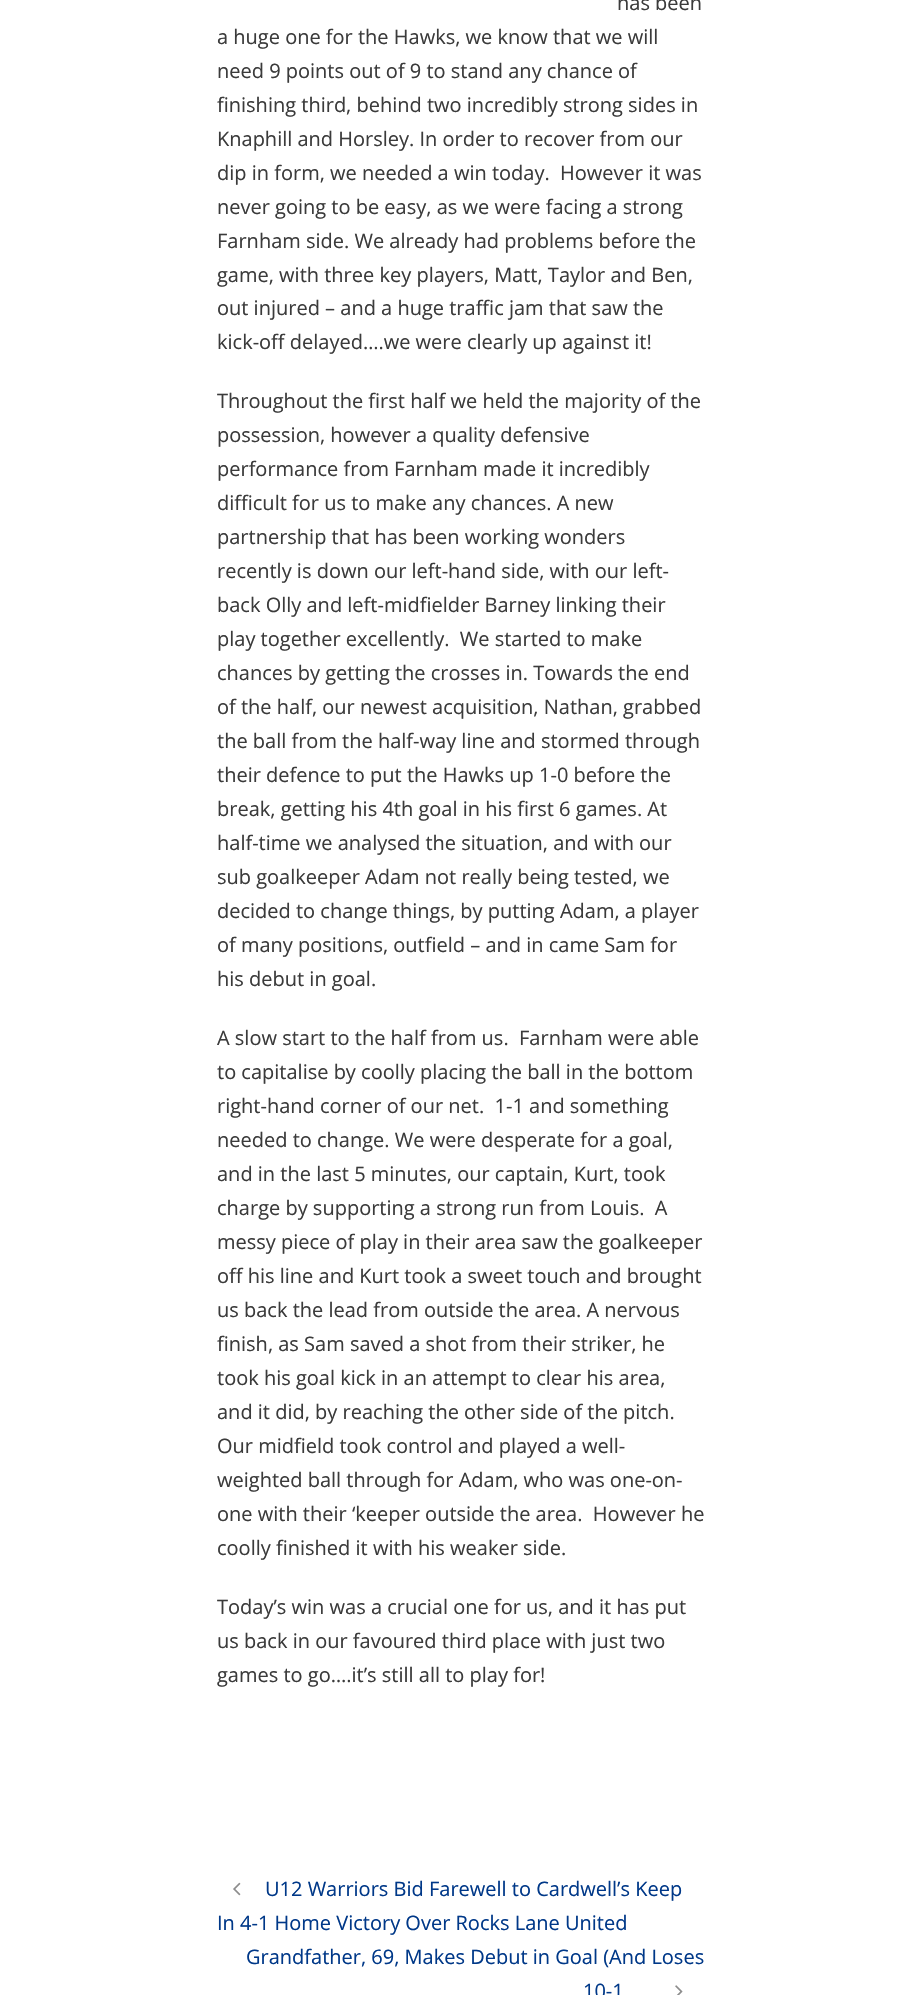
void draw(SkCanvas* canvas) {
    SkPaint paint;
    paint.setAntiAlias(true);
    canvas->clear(0xFFFFFFFF);
    SkFont font1(fontMgr->matchFamilyStyle("Open Sans", SkFontStyle::Normal()), 20);
    font1.setSubpixel(true);
    paint.setColor(0xFF3B3B3B);
    canvas->drawString("has been", 617, 10, font1, paint);
    canvas->drawString("a huge one for the Hawks, we know that we will", 217, 44, font1, paint);
    canvas->drawString("need 9 points out of 9 to stand any chance of", 217, 78, font1, paint);
    canvas->drawString("finishing third, behind two incredibly strong sides in", 217, 112, font1, paint);
    canvas->drawString("Knaphill and Horsley. In order to recover from our", 217, 146, font1, paint);
    canvas->drawString("dip in form, we needed a win today.  However it was", 217, 180, font1, paint);
    canvas->drawString("never going to be easy, as we were facing a strong", 217, 214, font1, paint);
    canvas->drawString("Farnham side. We already had problems before the", 217, 248, font1, paint);
    canvas->drawString("game, with three key players, Matt, Taylor and Ben,", 217, 282, font1, paint);
    canvas->drawString("out injured – and a huge traffic jam that saw the", 217, 315, font1, paint);
    canvas->drawString("kick-off delayed….we were clearly up against it!", 217, 349, font1, paint);
    canvas->drawString("Throughout the first half we held the majority of the", 217, 408, font1, paint);
    canvas->drawString("possession, however a quality defensive", 217, 442, font1, paint);
    canvas->drawString("performance from Farnham made it incredibly", 217, 476, font1, paint);
    canvas->drawString("difficult for us to make any chances. A new", 217, 510, font1, paint);
    canvas->drawString("partnership that has been working wonders", 217, 544, font1, paint);
    canvas->drawString("recently is down our left-hand side, with our left-", 217, 578, font1, paint);
    canvas->drawString("back Olly and left-midfielder Barney linking their", 217, 612, font1, paint);
    canvas->drawString("play together excellently.  We started to make", 217, 646, font1, paint);
    canvas->drawString("chances by getting the crosses in. Towards the end", 217, 680, font1, paint);
    canvas->drawString("of the half, our newest acquisition, Nathan, grabbed", 217, 714, font1, paint);
    canvas->drawString("the ball from the half-way line and stormed through", 217, 748, font1, paint);
    canvas->drawString("their defence to put the Hawks up 1-0 before the", 217, 782, font1, paint);
    canvas->drawString("break, getting his 4th goal in his first 6 games. At", 217, 816, font1, paint);
    canvas->drawString("half-time we analysed the situation, and with our", 217, 850, font1, paint);
    canvas->drawString("sub goalkeeper Adam not really being tested, we", 217, 884, font1, paint);
    canvas->drawString("decided to change things, by putting Adam, a player", 217, 918, font1, paint);
    canvas->drawString("of many positions, outfield – and in came Sam for", 217, 952, font1, paint);
    canvas->drawString("his debut in goal.", 217, 986, font1, paint);
    canvas->drawString("A slow start to the half from us.  Farnham were able", 217, 1045, font1, paint);
    canvas->drawString("to capitalise by coolly placing the ball in the bottom", 217, 1079, font1, paint);
    canvas->drawString("right-hand corner of our net.  1-1 and something", 217, 1113, font1, paint);
    canvas->drawString("needed to change. We were desperate for a goal,", 217, 1147, font1, paint);
    canvas->drawString("and in the last 5 minutes, our captain, Kurt, took", 217, 1181, font1, paint);
    canvas->drawString("charge by supporting a strong run from Louis.  A", 217, 1215, font1, paint);
    canvas->drawString("messy piece of play in their area saw the goalkeeper", 217, 1249, font1, paint);
    canvas->drawString("off his line and Kurt took a sweet touch and brought", 217, 1283, font1, paint);
    canvas->drawString("us back the lead from outside the area. A nervous", 217, 1317, font1, paint);
    canvas->drawString("finish, as Sam saved a shot from their striker, he", 217, 1351, font1, paint);
    canvas->drawString("took his goal kick in an attempt to clear his area,", 217, 1385, font1, paint);
    canvas->drawString("and it did, by reaching the other side of the pitch.", 217, 1419, font1, paint);
    canvas->drawString("Our midfield took control and played a well-", 217, 1453, font1, paint);
    canvas->drawString("weighted ball through for Adam, who was one-on-", 217, 1487, font1, paint);
    canvas->drawString("one with their ‘keeper outside the area.  However he", 217, 1521, font1, paint);
    canvas->drawString("coolly finished it with his weaker side.", 217, 1555, font1, paint);
    canvas->drawString("Today’s win was a crucial one for us, and it has put", 217, 1614, font1, paint);
    canvas->drawString("us back in our favoured third place with just two", 217, 1648, font1, paint);
    canvas->drawString("games to go….it’s still all to play for!", 217, 1682, font1, paint);
    canvas->drawImageRect(SkImages::DeferredFromEncodedData(SkData::MakeFromFileName("img1.png")), SkRect::MakeXYWH(233, 1882, 8, 14), SkSamplingOptions());
    paint.setColor(0xFF003888);
    canvas->drawString("U12 Warriors Bid Farewell to Cardwell’s Keep", 265, 1896, font1, paint);
    canvas->drawString("In 4-1 Home Victory Over Rocks Lane United", 217, 1930, font1, paint);
    canvas->drawString("Grandfather, 69, Makes Debut in Goal (And Loses", 246, 1964, font1, paint);
    canvas->drawString("10-1", 583, 1998, font1, paint);
    canvas->drawImageRect(SkImages::DeferredFromEncodedData(SkData::MakeFromFileName("img2.png")), SkRect::MakeXYWH(675, 1985, 8, 10), SkSamplingOptions());
}
